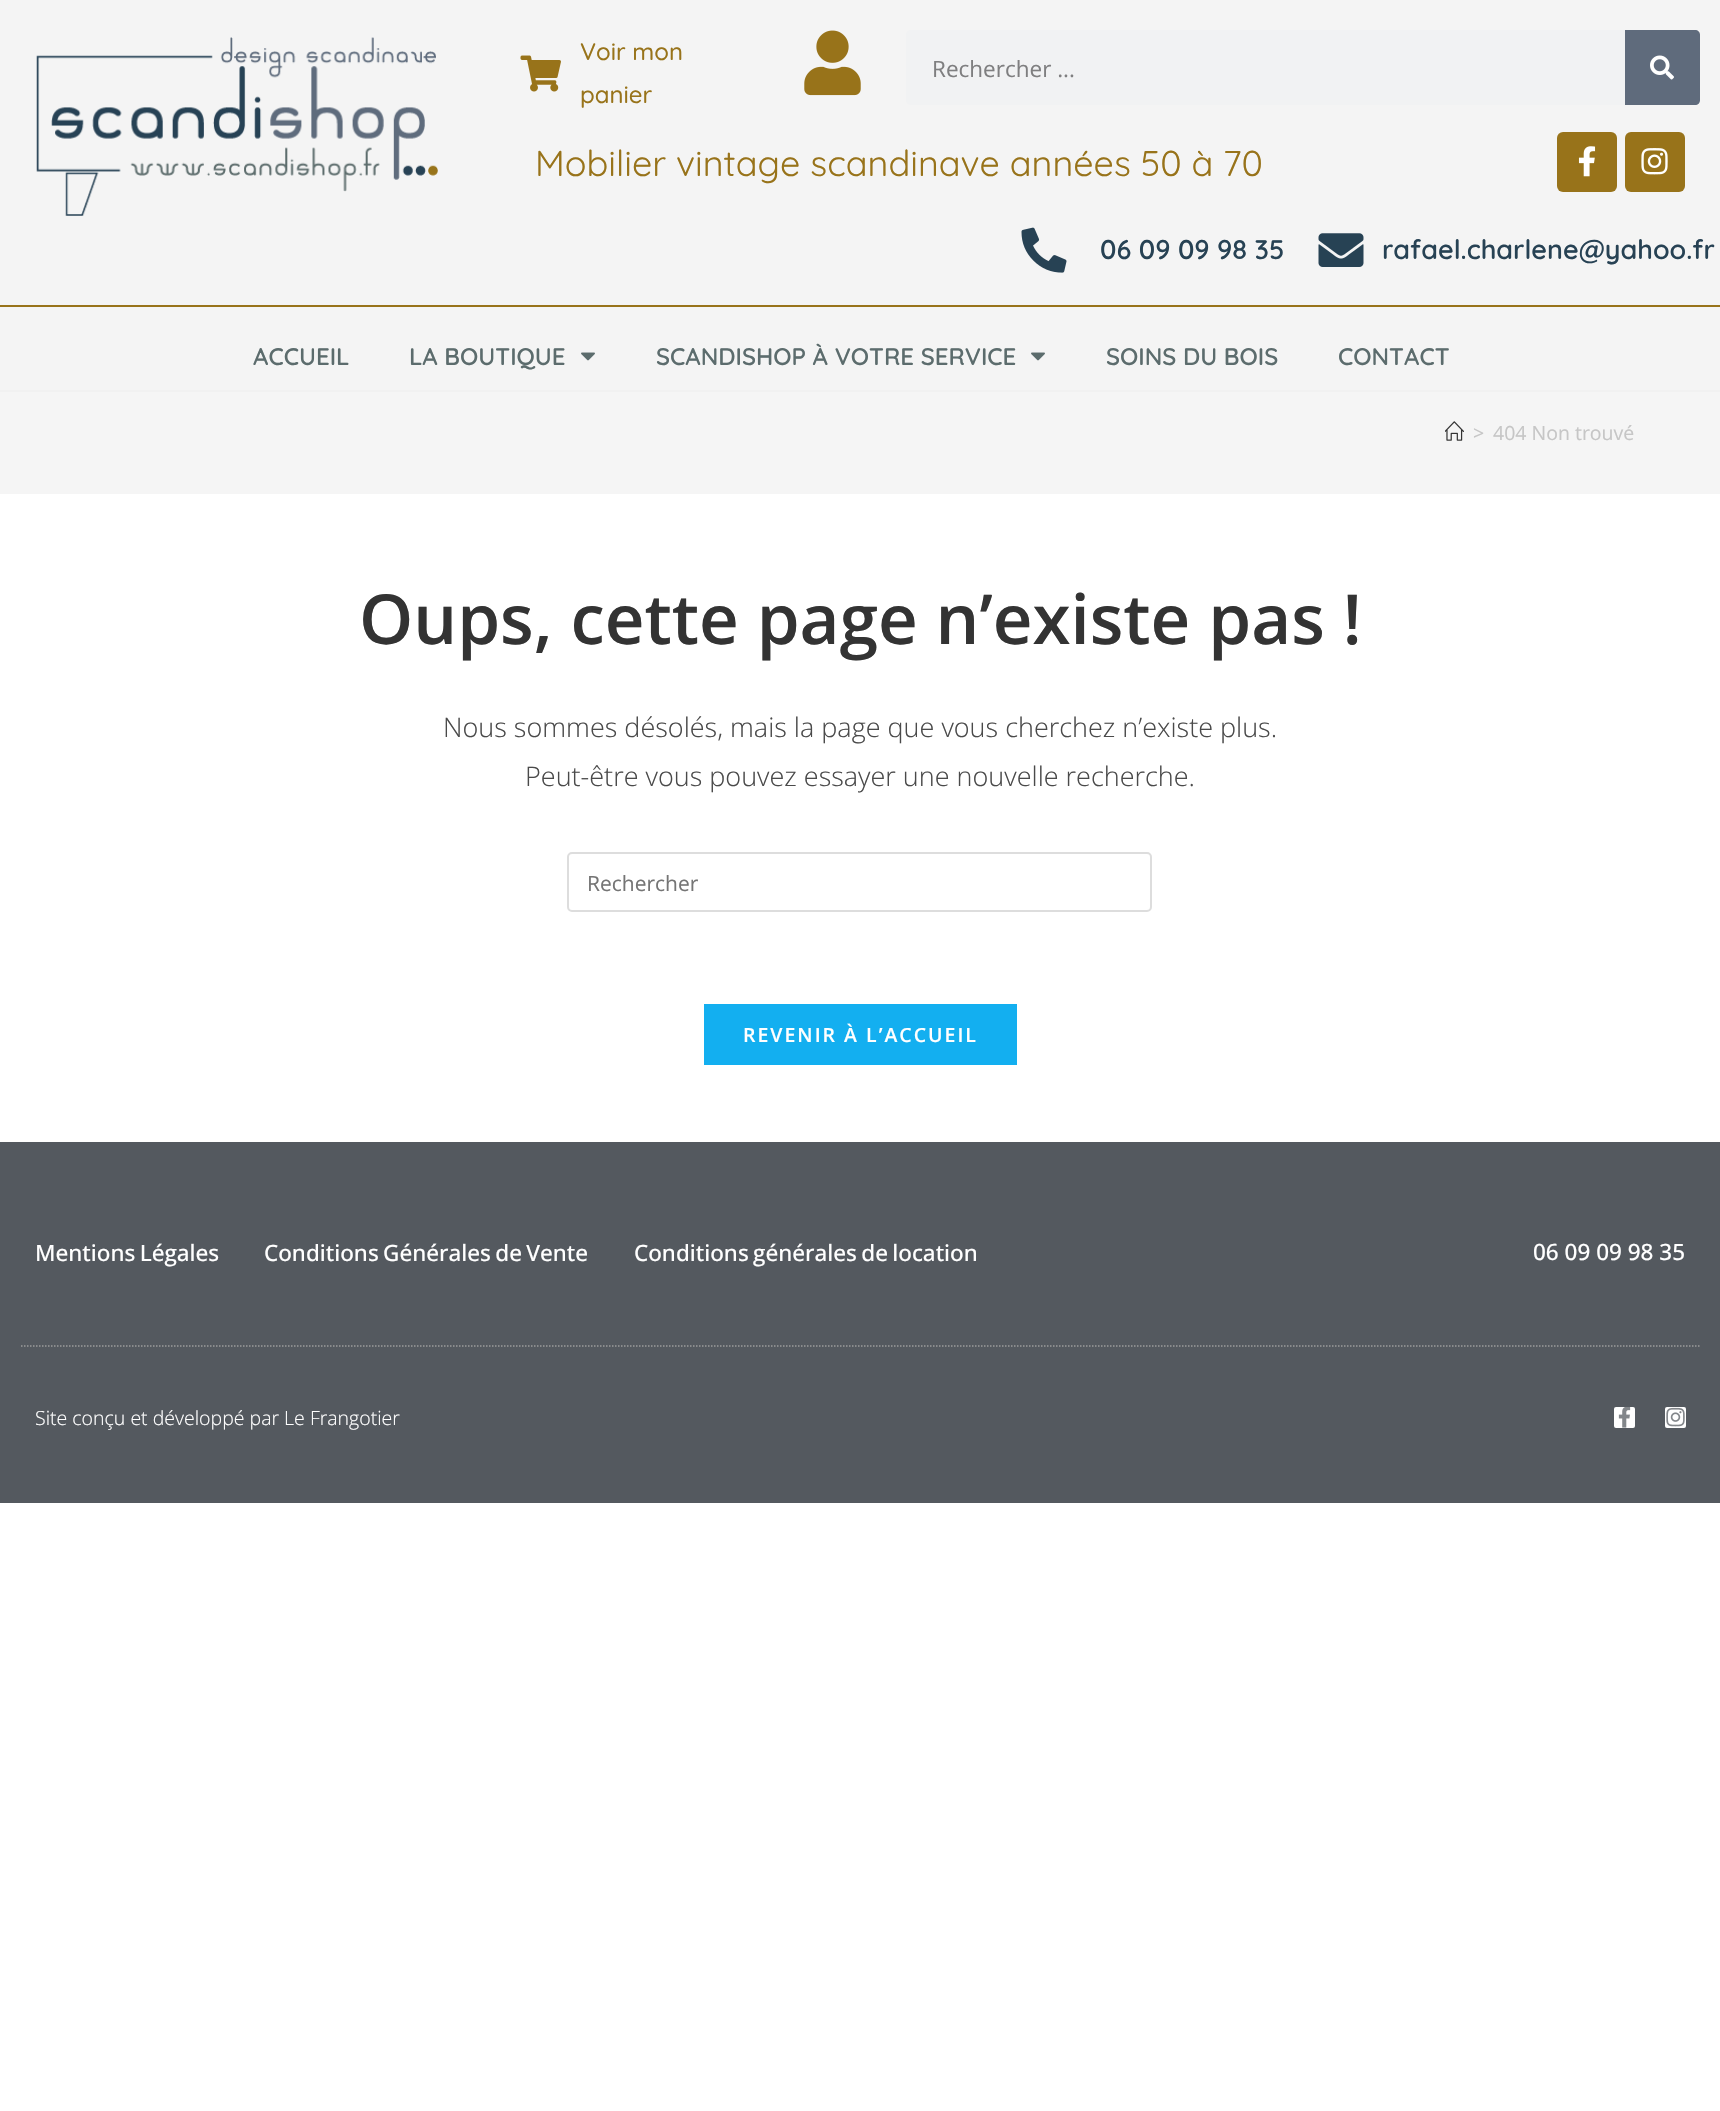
void draw(SkCanvas* canvas) {
    SkPaint paint;
    paint.setAntiAlias(true);
    auto spacedText = [&](const char* s, float x, float y, const SkFont& font, const SkPaint& ink, float letter, float word) {
        std::vector<SkGlyphID> glyphs(font.countText(s, strlen(s), SkTextEncoding::kUTF8));
        std::vector<float> xs(glyphs.size());
        font.textToGlyphs(s, strlen(s), SkTextEncoding::kUTF8, glyphs);
        font.getXPos(glyphs, xs, x);
        float extra = 0;
        for (size_t i = 0; i < glyphs.size(); i++) {
            xs[i] += extra;
            extra += letter + word * (glyphs[i] == font.unicharToGlyph(' '));
        }
        canvas->drawTextBlob(SkTextBlob::MakeFromPosHGlyphs(glyphs, xs, y, font), 0, 0, ink);
    };
    canvas->clear(0xFFFFFFFF);
    paint.setColor(0xFFF1F1F1);
    canvas->drawRect(SkRect::MakeXYWH(0, 390, 1720, 2), paint);
    paint.setColor(0xFFF4F4F4);
    canvas->drawRect(SkRect::MakeXYWH(0, 0, 1720, 305), paint);
    canvas->drawImageRect(SkImages::DeferredFromEncodedData(SkData::MakeFromFileName("img1.png")), SkRect::MakeXYWH(36, 37, 402, 179), SkSamplingOptions());
    canvas->drawImageRect(SkImages::DeferredFromEncodedData(SkData::MakeFromFileName("img2.png")), SkRect::MakeXYWH(520, 55, 41, 37), SkSamplingOptions());
    SkFont font1(fontMgr->matchFamilyStyle("Quicksand", SkFontStyle(500, SkFontStyle::kNormal_Width, SkFontStyle::kUpright_Slant)), 24);
    font1.setSubpixel(true);
    paint.setColor(0xFF98731A);
    canvas->drawString("Voir mon", 580, 60, font1, paint);
    canvas->drawString("panier", 580, 103, font1, paint);
    canvas->drawImageRect(SkImages::DeferredFromEncodedData(SkData::MakeFromFileName("img3.png")), SkRect::MakeXYWH(804, 30, 57, 66), SkSamplingOptions());
    paint.setColor(0xFFF1F2F3);
    canvas->drawRoundRect(SkRect::MakeXYWH(906, 30, 794, 75), 5, 5, paint);
    SkFont font2(fontMgr->matchFamilyStyle("Open Sans", SkFontStyle::Normal()), 22.5f);
    font2.setSubpixel(true);
    paint.setColor(0xFF7F7F80);
    canvas->drawString("Rechercher ...", 932, 77, font2, paint);
    paint.setColor(0xFF5F6B7C);
    canvas->drawPath(SkPathBuilder().moveTo(1625, 30).lineTo(1695, 30).cubicTo(1698, 30, 1700, 32, 1700, 35).lineTo(1700, 100).cubicTo(1700, 103, 1698, 105, 1695, 105).lineTo(1625, 105).close().detach(), paint);
    canvas->drawImageRect(SkImages::DeferredFromEncodedData(SkData::MakeFromFileName("img4.png")), SkRect::MakeXYWH(1650, 55, 24, 25), SkSamplingOptions());
    SkFont font3(fontMgr->matchFamilyStyle("Quicksand", SkFontStyle::Normal()), 36);
    font3.setSubpixel(true);
    paint.setColor(0xFF98731A);
    canvas->drawString("Mobilier vintage scandinave années 50 à 70", 535, 176, font3, paint);
    canvas->drawRoundRect(SkRect::MakeXYWH(1557, 132, 60, 60), 6, 6, paint);
    canvas->drawImageRect(SkImages::DeferredFromEncodedData(SkData::MakeFromFileName("img5.png")), SkRect::MakeXYWH(1578, 146, 18, 31), SkSamplingOptions());
    canvas->drawRoundRect(SkRect::MakeXYWH(1625, 132, 60, 60), 6, 6, paint);
    canvas->drawImageRect(SkImages::DeferredFromEncodedData(SkData::MakeFromFileName("img6.png")), SkRect::MakeXYWH(1641, 148, 27, 27), SkSamplingOptions());
    canvas->drawImageRect(SkImages::DeferredFromEncodedData(SkData::MakeFromFileName("img7.png")), SkRect::MakeXYWH(1021, 227, 46, 46), SkSamplingOptions());
    SkFont font4(fontMgr->matchFamilyStyle("Quicksand", SkFontStyle(600, SkFontStyle::kNormal_Width, SkFontStyle::kUpright_Slant)), 27);
    font4.setSubpixel(true);
    paint.setColor(0xFF274254);
    canvas->drawString("06 09 09 98 35", 1100, 259, font4, paint);
    canvas->drawImageRect(SkImages::DeferredFromEncodedData(SkData::MakeFromFileName("img8.png")), SkRect::MakeXYWH(1318, 233, 46, 34), SkSamplingOptions());
    canvas->drawString("rafael.charlene@yahoo.fr", 1382, 259, font4, paint);
    paint.setColor(0xFFF4F4F4);
    canvas->drawRect(SkRect::MakeXYWH(0, 307, 1720, 83), paint);
    paint.setColor(0xFF98731A);
    canvas->drawRect(SkRect::MakeXYWH(0, 305, 1720, 2), paint);
    SkFont font5(fontMgr->matchFamilyStyle("Quicksand", SkFontStyle(600, SkFontStyle::kNormal_Width, SkFontStyle::kUpright_Slant)), 24);
    font5.setSubpixel(true);
    paint.setColor(0xFF5C6C6D);
    canvas->drawString("ACCUEIL", 253, 365, font5, paint);
    canvas->drawString("LA BOUTIQUE", 409, 365, font5, paint);
    canvas->drawImageRect(SkImages::DeferredFromEncodedData(SkData::MakeFromFileName("img9.png")), SkRect::MakeXYWH(581, 352, 14, 9), SkSamplingOptions());
    canvas->drawString("SCANDISHOP À VOTRE SERVICE", 656, 365, font5, paint);
    canvas->drawImageRect(SkImages::DeferredFromEncodedData(SkData::MakeFromFileName("img9.png")), SkRect::MakeXYWH(1031, 352, 14, 9), SkSamplingOptions());
    canvas->drawString("SOINS DU BOIS", 1106, 365, font5, paint);
    canvas->drawString("CONTACT", 1338, 365, font5, paint);
    paint.setColor(0xFFF5F5F5);
    canvas->drawRect(SkRect::MakeXYWH(0, 392, 1720, 102), paint);
    canvas->drawImageRect(SkImages::DeferredFromEncodedData(SkData::MakeFromFileName("img10.png")), SkRect::MakeXYWH(1445, 421, 19, 20), SkSamplingOptions());
    SkFont font6(fontMgr->matchFamilyStyle("Open Sans", SkFontStyle::Normal()), 19.5f);
    font6.setSubpixel(true);
    paint.setColor(0xFFC6C6C6);
    canvas->drawString(">", 1473, 440, font6, paint);
    canvas->drawString("404 Non trouvé", 1493, 440, font6, paint);
    SkFont font7(fontMgr->matchFamilyStyle("Open Sans", SkFontStyle(600, SkFontStyle::kNormal_Width, SkFontStyle::kUpright_Slant)), 69);
    font7.setSubpixel(true);
    paint.setColor(0xFF333333);
    canvas->drawString("Oups, cette page n’existe pas !", 359, 644, font7, paint);
    SkFont font8(fontMgr->matchFamilyStyle("Open Sans", SkFontStyle(300, SkFontStyle::kNormal_Width, SkFontStyle::kUpright_Slant)), 27);
    font8.setSubpixel(true);
    paint.setColor(0xFF4A4A4A);
    canvas->drawString("Nous sommes désolés, mais la page que vous cherchez n’existe plus.", 443, 737, font8, paint);
    canvas->drawString("Peut-être vous pouvez essayer une nouvelle recherche.", 525, 786, font8, paint);
    paint.setStyle(SkPaint::kStroke_Style);
    paint.setStrokeWidth(2);
    paint.setColor(0xFFDDDDDD);
    canvas->drawRoundRect(SkRect::MakeXYWH(568, 853, 583, 58), 4, 4, paint);
    SkFont font9(fontMgr->matchFamilyStyle("Open Sans", SkFontStyle::Normal()), 21);
    font9.setSubpixel(true);
    paint.setStyle(SkPaint::kFill_Style);
    paint.setColor(0xFF757575);
    canvas->drawString("Rechercher", 587, 891, font9, paint);
    paint.setColor(0xFF13AFF0);
    canvas->drawRect(SkRect::MakeXYWH(704, 1004, 313, 61), paint);
    SkFont font10(fontMgr->matchFamilyStyle("Open Sans", SkFontStyle(600, SkFontStyle::kNormal_Width, SkFontStyle::kUpright_Slant)), 19.5f);
    font10.setSubpixel(true);
    paint.setColor(0xFFFFFFFF);
    spacedText("REVENIR À L’ACCUEIL", 743, 1042, font10, paint, 2, 0);
    paint.setColor(0xFF54595F);
    canvas->drawRect(SkRect::MakeXYWH(0, 1142, 1720, 361), paint);
    paint.setStyle(SkPaint::kStroke_Style);
    paint.setStrokeWidth(1.5f);
    paint.setColor(0xFF9B9B9B);
    paint.setPathEffect(SkDashPathEffect::Make({{1.5f, 1.5f}}, 0));
    canvas->drawPath(SkPathBuilder().moveTo(21, 1346).lineTo(1701, 1346).detach(), paint);
    paint.setPathEffect(nullptr);
    SkFont font11(fontMgr->matchFamilyStyle("Open Sans", SkFontStyle(500, SkFontStyle::kNormal_Width, SkFontStyle::kUpright_Slant)), 22.5f);
    font11.setSubpixel(true);
    paint.setStyle(SkPaint::kFill_Style);
    paint.setColor(0xFFFFFFFF);
    spacedText("Mentions Légales", 35, 1261, font11, paint, 0, -1.5f);
    spacedText("Conditions Générales de Vente", 264, 1261, font11, paint, 0, -1.5f);
    spacedText("Conditions générales de location", 634, 1261, font11, paint, 0, -1.5f);
    canvas->drawString("06 09 09 98 35", 1533, 1260, font11, paint);
    SkFont font12(fontMgr->matchFamilyStyle("Open Sans", SkFontStyle(300, SkFontStyle::kNormal_Width, SkFontStyle::kUpright_Slant)), 19.5f);
    font12.setSubpixel(true);
    canvas->drawString("Site conçu et développé par Le Frangotier", 35, 1425, font12, paint);
    canvas->drawRoundRect(SkRect::MakeXYWH(1614, 1407, 21, 21), 2, 2, paint);
    canvas->drawImageRect(SkImages::DeferredFromEncodedData(SkData::MakeFromFileName("img11.png")), SkRect::MakeXYWH(1618, 1407, 13, 21), SkSamplingOptions());
    canvas->drawRoundRect(SkRect::MakeXYWH(1665, 1407, 21, 21), 2, 2, paint);
    canvas->drawImageRect(SkImages::DeferredFromEncodedData(SkData::MakeFromFileName("img12.png")), SkRect::MakeXYWH(1666, 1407, 19, 20), SkSamplingOptions());
}
